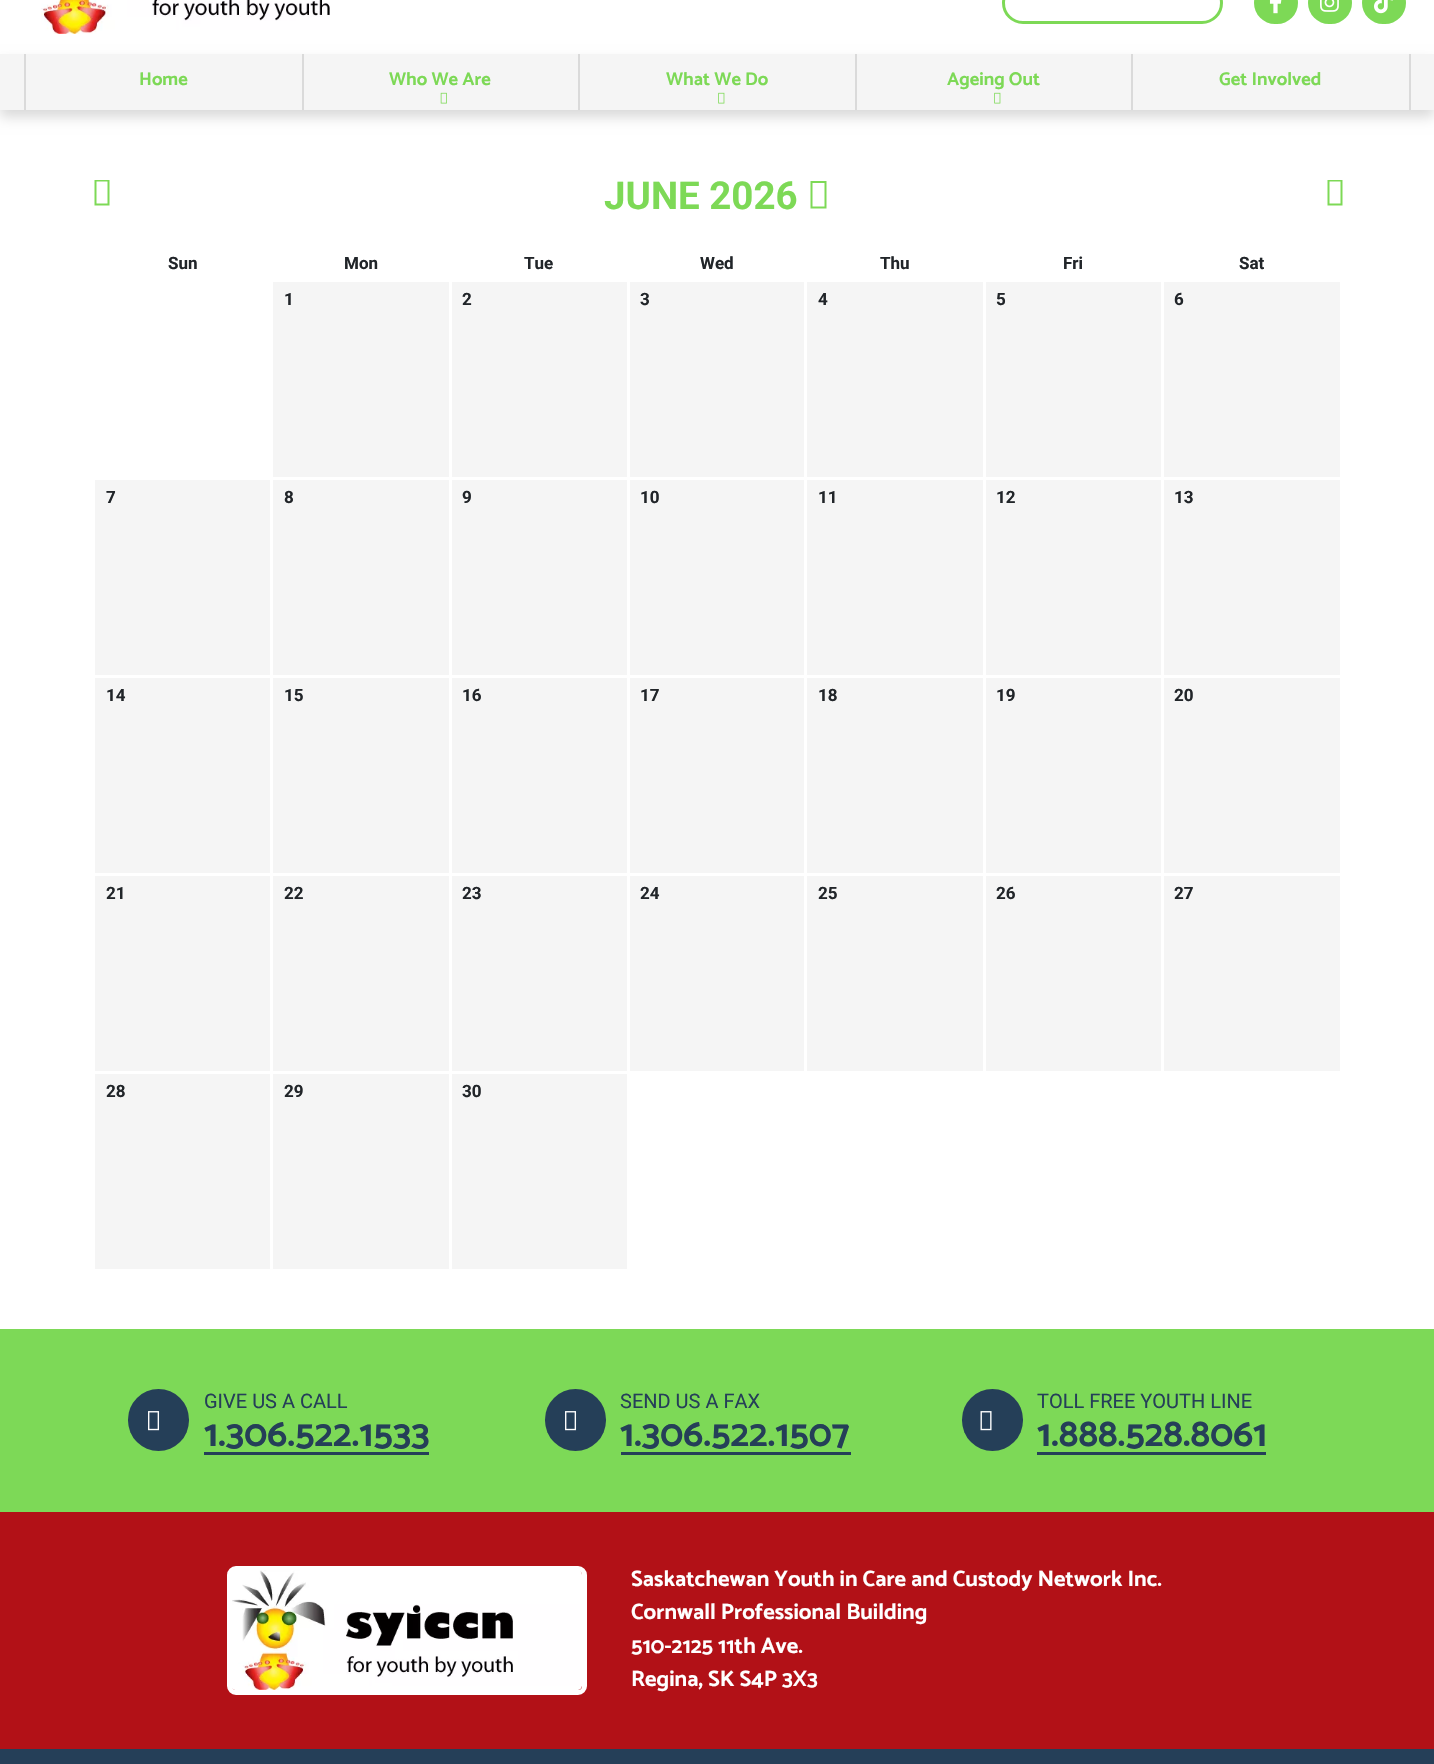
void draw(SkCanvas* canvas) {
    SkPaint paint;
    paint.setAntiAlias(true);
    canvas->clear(0xFFFFFFFF);
    canvas->drawImageRect(SkImages::DeferredFromEncodedData(SkData::MakeFromFileName("img1.png")), SkRect::MakeXYWH(41, 0, 289, 34), SkSamplingOptions());
    paint.setStyle(SkPaint::kStroke_Style);
    paint.setStrokeWidth(3);
    paint.setColor(0xFF7DD956);
    canvas->drawRoundRect(SkRect::MakeXYWH(1003.5f, -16.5f, 218, 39), 19.5f, 19.5f, paint);
    paint.setStyle(SkPaint::kFill_Style);
    canvas->drawRoundRect(SkRect::MakeXYWH(1254, -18, 44, 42), 21, 21, paint);
    canvas->drawImageRect(SkImages::DeferredFromEncodedData(SkData::MakeFromFileName("img2.png")), SkRect::MakeXYWH(1269, 0, 13, 14), SkSamplingOptions());
    canvas->drawRoundRect(SkRect::MakeXYWH(1308, -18, 44, 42), 21, 21, paint);
    canvas->drawImageRect(SkImages::DeferredFromEncodedData(SkData::MakeFromFileName("img3.png")), SkRect::MakeXYWH(1320, 0, 19, 12), SkSamplingOptions());
    canvas->drawRoundRect(SkRect::MakeXYWH(1362, -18, 44, 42), 21, 21, paint);
    canvas->drawImageRect(SkImages::DeferredFromEncodedData(SkData::MakeFromFileName("img4.png")), SkRect::MakeXYWH(1374, 0, 19, 14), SkSamplingOptions());
    paint.setColor(0x26000000);
    paint.setMaskFilter(SkMaskFilter::MakeBlur(kNormal_SkBlurStyle, 6));
    canvas->drawRect(SkRect::MakeXYWH(0, 62, 1434, 55), paint);
    paint.setMaskFilter(nullptr);
    paint.setColor(0xFFF5F5F5);
    canvas->drawRect(SkRect::MakeXYWH(0, 54, 1434, 56), paint);
    paint.setColor(0xFFDADADA);
    canvas->drawRect(SkRect::MakeXYWH(24, 54, 2, 56), paint);
    SkFont font1(fontMgr->matchFamilyStyle("Catamaran", SkFontStyle::Bold()), 18.5f);
    font1.setSubpixel(true);
    paint.setColor(0xFF7DD956);
    canvas->drawString("Home", 139, 85, font1, paint);
    paint.setColor(0xFFDADADA);
    canvas->drawRect(SkRect::MakeXYWH(302, 54, 2, 56), paint);
    paint.setColor(0xFF7DD956);
    canvas->drawString("Who We Are", 389, 85, font1, paint);
    canvas->drawImageRect(SkImages::DeferredFromEncodedData(SkData::MakeFromFileName("img5.png")), SkRect::MakeXYWH(440, 92, 7, 12), SkSamplingOptions());
    paint.setColor(0xFFDADADA);
    canvas->drawRect(SkRect::MakeXYWH(578, 54, 2, 56), paint);
    paint.setColor(0xFF7DD956);
    canvas->drawString("What We Do", 666, 85, font1, paint);
    canvas->drawImageRect(SkImages::DeferredFromEncodedData(SkData::MakeFromFileName("img6.png")), SkRect::MakeXYWH(718, 92, 7, 12), SkSamplingOptions());
    paint.setColor(0xFFDADADA);
    canvas->drawRect(SkRect::MakeXYWH(855, 54, 2, 56), paint);
    paint.setColor(0xFF7DD956);
    canvas->drawString("Ageing Out", 947, 85, font1, paint);
    canvas->drawImageRect(SkImages::DeferredFromEncodedData(SkData::MakeFromFileName("img6.png")), SkRect::MakeXYWH(994, 92, 7, 12), SkSamplingOptions());
    paint.setColor(0xFFDADADA);
    canvas->drawRect(SkRect::MakeXYWH(1409, 54, 2, 56), paint);
    canvas->drawRect(SkRect::MakeXYWH(1131, 54, 2, 56), paint);
    paint.setColor(0xFF7DD956);
    canvas->drawString("Get Involved", 1219, 85, font1, paint);
    canvas->drawPath(SkPathBuilder().moveTo(94.5f, 205.5f).lineTo(94.5f, 180).lineTo(109.5f, 180).lineTo(109.5f, 205.5f).close().moveTo(96.5f, 203.5f).lineTo(107.5f, 203.5f).lineTo(107.5f, 181.5f).lineTo(96.5f, 181.5f).close().detach(), paint);
    SkFont font2(fontMgr->matchFamilyStyle("Roboto", SkFontStyle::Bold()), 38.5f);
    font2.setSubpixel(true);
    canvas->drawString("JUNE 2026", 604, 209, font2, paint);
    canvas->drawPath(SkPathBuilder().moveTo(810.5f, 208.5f).lineTo(810.5f, 181).lineTo(826.5f, 181).lineTo(826.5f, 208.5f).close().moveTo(812.5f, 206.5f).lineTo(824.5f, 206.5f).lineTo(824.5f, 183).lineTo(812.5f, 183).close().detach(), paint);
    canvas->drawPath(SkPathBuilder().moveTo(1327.5f, 205.5f).lineTo(1327.5f, 180).lineTo(1342.5f, 180).lineTo(1342.5f, 205.5f).close().moveTo(1329.5f, 203.5f).lineTo(1340.5f, 203.5f).lineTo(1340.5f, 181.5f).lineTo(1329.5f, 181.5f).close().detach(), paint);
    SkFont font3(fontMgr->matchFamilyStyle("Roboto", SkFontStyle::Bold()), 17);
    font3.setSubpixel(true);
    paint.setColor(0xFF212529);
    canvas->drawString("Sun", 168, 269, font3, paint);
    canvas->drawString("Mon", 344, 269, font3, paint);
    canvas->drawString("Tue", 524, 269, font3, paint);
    canvas->drawString("Wed", 700, 269, font3, paint);
    canvas->drawString("Thu", 880, 269, font3, paint);
    canvas->drawString("Fri", 1063, 269, font3, paint);
    canvas->drawString("Sat", 1239, 269, font3, paint);
    paint.setColor(0xFFF5F5F5);
    canvas->drawRect(SkRect::MakeXYWH(273, 282, 176, 195), paint);
    paint.setColor(0xFF212529);
    canvas->drawString("1", 284, 305, font3, paint);
    paint.setColor(0xFFF5F5F5);
    canvas->drawRect(SkRect::MakeXYWH(452, 282, 175, 195), paint);
    paint.setColor(0xFF212529);
    canvas->drawString("2", 462, 305, font3, paint);
    paint.setColor(0xFFF5F5F5);
    canvas->drawRect(SkRect::MakeXYWH(630, 282, 174, 195), paint);
    paint.setColor(0xFF212529);
    canvas->drawString("3", 640, 305, font3, paint);
    paint.setColor(0xFFF5F5F5);
    canvas->drawRect(SkRect::MakeXYWH(807, 282, 176, 195), paint);
    paint.setColor(0xFF212529);
    canvas->drawString("4", 818, 305, font3, paint);
    paint.setColor(0xFFF5F5F5);
    canvas->drawRect(SkRect::MakeXYWH(986, 282, 175, 195), paint);
    paint.setColor(0xFF212529);
    canvas->drawString("5", 996, 305, font3, paint);
    paint.setColor(0xFFF5F5F5);
    canvas->drawRect(SkRect::MakeXYWH(1164, 282, 176, 195), paint);
    paint.setColor(0xFF212529);
    canvas->drawString("6", 1174, 305, font3, paint);
    paint.setColor(0xFFF5F5F5);
    canvas->drawRect(SkRect::MakeXYWH(95, 480, 175, 195), paint);
    paint.setColor(0xFF212529);
    canvas->drawString("7", 106, 503, font3, paint);
    paint.setColor(0xFFF5F5F5);
    canvas->drawRect(SkRect::MakeXYWH(273, 480, 176, 195), paint);
    paint.setColor(0xFF212529);
    canvas->drawString("8", 284, 503, font3, paint);
    paint.setColor(0xFFF5F5F5);
    canvas->drawRect(SkRect::MakeXYWH(452, 480, 175, 195), paint);
    paint.setColor(0xFF212529);
    canvas->drawString("9", 462, 503, font3, paint);
    paint.setColor(0xFFF5F5F5);
    canvas->drawRect(SkRect::MakeXYWH(630, 480, 174, 195), paint);
    paint.setColor(0xFF212529);
    canvas->drawString("10", 640, 503, font3, paint);
    paint.setColor(0xFFF5F5F5);
    canvas->drawRect(SkRect::MakeXYWH(807, 480, 176, 195), paint);
    paint.setColor(0xFF212529);
    canvas->drawString("11", 818, 503, font3, paint);
    paint.setColor(0xFFF5F5F5);
    canvas->drawRect(SkRect::MakeXYWH(986, 480, 175, 195), paint);
    paint.setColor(0xFF212529);
    canvas->drawString("12", 996, 503, font3, paint);
    paint.setColor(0xFFF5F5F5);
    canvas->drawRect(SkRect::MakeXYWH(1164, 480, 176, 195), paint);
    paint.setColor(0xFF212529);
    canvas->drawString("13", 1174, 503, font3, paint);
    paint.setColor(0xFFF5F5F5);
    canvas->drawRect(SkRect::MakeXYWH(95, 678, 175, 195), paint);
    paint.setColor(0xFF212529);
    canvas->drawString("14", 106, 701, font3, paint);
    paint.setColor(0xFFF5F5F5);
    canvas->drawRect(SkRect::MakeXYWH(273, 678, 176, 195), paint);
    paint.setColor(0xFF212529);
    canvas->drawString("15", 284, 701, font3, paint);
    paint.setColor(0xFFF5F5F5);
    canvas->drawRect(SkRect::MakeXYWH(452, 678, 175, 195), paint);
    paint.setColor(0xFF212529);
    canvas->drawString("16", 462, 701, font3, paint);
    paint.setColor(0xFFF5F5F5);
    canvas->drawRect(SkRect::MakeXYWH(630, 678, 174, 195), paint);
    paint.setColor(0xFF212529);
    canvas->drawString("17", 640, 701, font3, paint);
    paint.setColor(0xFFF5F5F5);
    canvas->drawRect(SkRect::MakeXYWH(807, 678, 176, 195), paint);
    paint.setColor(0xFF212529);
    canvas->drawString("18", 818, 701, font3, paint);
    paint.setColor(0xFFF5F5F5);
    canvas->drawRect(SkRect::MakeXYWH(986, 678, 175, 195), paint);
    paint.setColor(0xFF212529);
    canvas->drawString("19", 996, 701, font3, paint);
    paint.setColor(0xFFF5F5F5);
    canvas->drawRect(SkRect::MakeXYWH(1164, 678, 176, 195), paint);
    paint.setColor(0xFF212529);
    canvas->drawString("20", 1174, 701, font3, paint);
    paint.setColor(0xFFF5F5F5);
    canvas->drawRect(SkRect::MakeXYWH(95, 876, 175, 195), paint);
    paint.setColor(0xFF212529);
    canvas->drawString("21", 106, 899, font3, paint);
    paint.setColor(0xFFF5F5F5);
    canvas->drawRect(SkRect::MakeXYWH(273, 876, 176, 195), paint);
    paint.setColor(0xFF212529);
    canvas->drawString("22", 284, 899, font3, paint);
    paint.setColor(0xFFF5F5F5);
    canvas->drawRect(SkRect::MakeXYWH(452, 876, 175, 195), paint);
    paint.setColor(0xFF212529);
    canvas->drawString("23", 462, 899, font3, paint);
    paint.setColor(0xFFF5F5F5);
    canvas->drawRect(SkRect::MakeXYWH(630, 876, 174, 195), paint);
    paint.setColor(0xFF212529);
    canvas->drawString("24", 640, 899, font3, paint);
    paint.setColor(0xFFF5F5F5);
    canvas->drawRect(SkRect::MakeXYWH(807, 876, 176, 195), paint);
    paint.setColor(0xFF212529);
    canvas->drawString("25", 818, 899, font3, paint);
    paint.setColor(0xFFF5F5F5);
    canvas->drawRect(SkRect::MakeXYWH(986, 876, 175, 195), paint);
    paint.setColor(0xFF212529);
    canvas->drawString("26", 996, 899, font3, paint);
    paint.setColor(0xFFF5F5F5);
    canvas->drawRect(SkRect::MakeXYWH(1164, 876, 176, 195), paint);
    paint.setColor(0xFF212529);
    canvas->drawString("27", 1174, 899, font3, paint);
    paint.setColor(0xFFF5F5F5);
    canvas->drawRect(SkRect::MakeXYWH(95, 1074, 175, 195), paint);
    paint.setColor(0xFF212529);
    canvas->drawString("28", 106, 1097, font3, paint);
    paint.setColor(0xFFF5F5F5);
    canvas->drawRect(SkRect::MakeXYWH(273, 1074, 176, 195), paint);
    paint.setColor(0xFF212529);
    canvas->drawString("29", 284, 1097, font3, paint);
    paint.setColor(0xFFF5F5F5);
    canvas->drawRect(SkRect::MakeXYWH(452, 1074, 175, 195), paint);
    paint.setColor(0xFF212529);
    canvas->drawString("30", 462, 1097, font3, paint);
    paint.setColor(0xFFB21117);
    canvas->drawRect(SkRect::MakeXYWH(0, 1512, 1434, 237), paint);
    paint.setColor(0xFF7DD957);
    canvas->drawRect(SkRect::MakeXYWH(0, 1329, 1434, 183), paint);
    paint.setColor(0xFF253F58);
    canvas->drawRoundRect(SkRect::MakeXYWH(128, 1389, 61, 62), 30.5f, 30.5f, paint);
    canvas->drawImageRect(SkImages::DeferredFromEncodedData(SkData::MakeFromFileName("img7.png")), SkRect::MakeXYWH(148, 1411, 12, 20), SkSamplingOptions());
    SkFont font4(fontMgr->matchFamilyStyle("Roboto", SkFontStyle::Normal()), 20);
    font4.setSubpixel(true);
    canvas->drawString("GIVE US A CALL", 204, 1408, font4, paint);
    SkFont font5(fontMgr->matchFamilyStyle("Catamaran", SkFontStyle::Bold()), 38);
    font5.setSubpixel(true);
    canvas->drawString("1.306.522.1533", 204, 1446, font5, paint);
    canvas->drawRect(SkRect::MakeXYWH(204, 1452, 225, 3), paint);
    canvas->drawRoundRect(SkRect::MakeXYWH(545, 1389, 61, 62), 30.5f, 30.5f, paint);
    canvas->drawImageRect(SkImages::DeferredFromEncodedData(SkData::MakeFromFileName("img7.png")), SkRect::MakeXYWH(565, 1411, 12, 20), SkSamplingOptions());
    canvas->drawString("SEND US A FAX", 620, 1408, font4, paint);
    canvas->drawString("1.306.522.1507", 620, 1446, font5, paint);
    canvas->drawRect(SkRect::MakeXYWH(621, 1452, 230, 3), paint);
    canvas->drawRoundRect(SkRect::MakeXYWH(962, 1389, 61, 62), 30.5f, 30.5f, paint);
    canvas->drawImageRect(SkImages::DeferredFromEncodedData(SkData::MakeFromFileName("img8.png")), SkRect::MakeXYWH(980, 1411, 12, 20), SkSamplingOptions());
    canvas->drawString("TOLL FREE YOUTH LINE", 1037, 1408, font4, paint);
    canvas->drawString("1.888.528.8061", 1037, 1446, font5, paint);
    canvas->drawRect(SkRect::MakeXYWH(1037, 1452, 229, 3), paint);
    paint.setStyle(SkPaint::kStroke_Style);
    paint.setStrokeWidth(5);
    paint.setColor(0xFFFFFFFF);
    canvas->drawRoundRect(SkRect::MakeXYWH(229.5f, 1568.5f, 355, 124), 6.5f, 6.5f, paint);
    canvas->drawImageRect(SkImages::DeferredFromEncodedData(SkData::MakeFromFileName("img9.png")), SkRect::MakeXYWH(232, 1570, 350, 120), SkSamplingOptions());
    SkFont font6(fontMgr->matchFamilyStyle("Catamaran", SkFontStyle::Bold()), 22.3f);
    font6.setSubpixel(true);
    paint.setStyle(SkPaint::kFill_Style);
    canvas->drawString("Saskatchewan Youth in Care and Custody Network Inc.", 631, 1586, font6, paint);
    canvas->drawString("Cornwall Professional Building", 631, 1619, font6, paint);
    canvas->drawString("510-2125 11th Ave.", 631, 1653, font6, paint);
    canvas->drawString("Regina, SK S4P 3X3", 631, 1686, font6, paint);
    paint.setColor(0xFF253F58);
    canvas->drawRect(SkRect::MakeXYWH(0, 1749, 1434, 15), paint);
}
